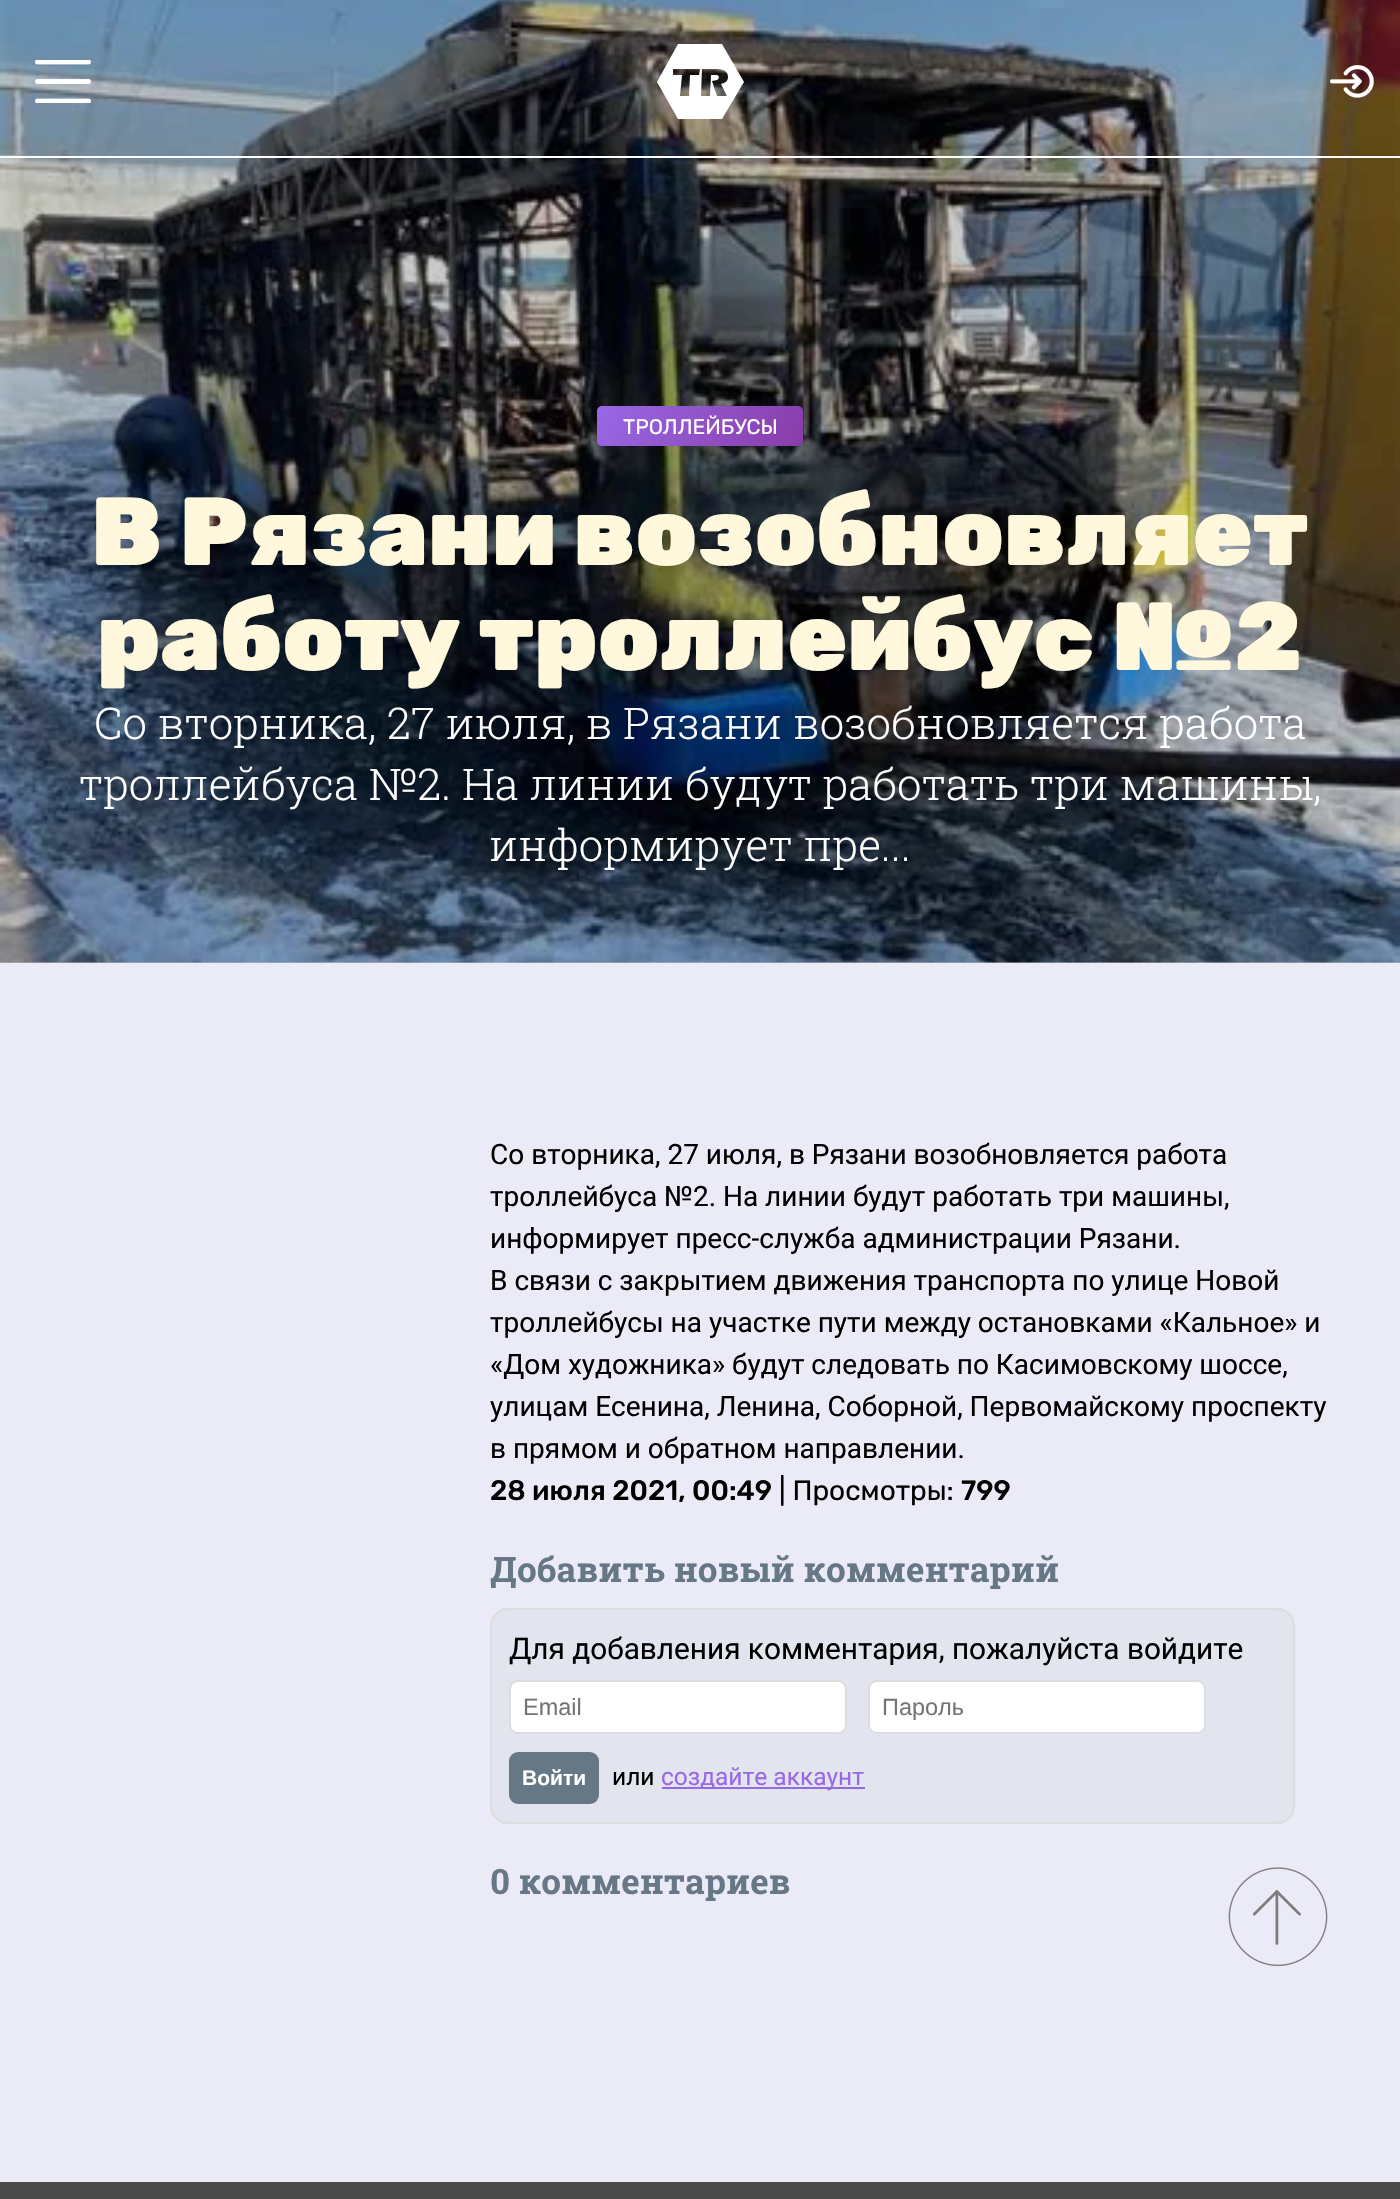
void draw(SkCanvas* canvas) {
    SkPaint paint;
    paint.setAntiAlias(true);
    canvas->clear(0xFFEAEBF6);
    paint.setColor(0xFFBBBCC5);
    canvas->drawRect(SkRect::MakeXYWH(0, 962, 1400, 1), paint);
    canvas->drawImageRect(SkImages::DeferredFromEncodedData(SkData::MakeFromFileName("img3.png")), SkRect::MakeXYWH(0, 0, 1400, 963), SkSamplingOptions());
    paint.setColor(0x0D000000);
    canvas->drawRect(SkRect::MakeXYWH(0, 0, 1400, 156), paint);
    paint.setColor(0xFFFFFFFF);
    canvas->drawRect(SkRect::MakeXYWH(0, 156, 1400, 2), paint);
    canvas->drawImageRect(SkImages::DeferredFromEncodedData(SkData::MakeFromFileName("img1.png")), SkRect::MakeXYWH(35, 60, 56, 43), SkSamplingOptions());
    {
        const SkColor colors[] = {0xFFFFFFFF, 0xFFFFFFFF};
        const float stops[] = {0, 1};
        const SkPoint ends[] = {{761, 141}, {628, 7.4f}};
        paint.setShader(SkGradientShader::MakeLinear(ends, colors, stops, 2, SkTileMode::kClamp));
        paint.setAlpha(255);
    }
    canvas->drawPath(SkPathBuilder().moveTo(722, 44).lineTo(678, 44).lineTo(657, 82).lineTo(678, 119).lineTo(722, 119).lineTo(744, 82).close().moveTo(702, 69).lineTo(712, 69).cubicTo(717, 69, 728, 68, 728, 77).cubicTo(728, 81, 725, 83, 721, 84).lineTo(727, 96).lineTo(717, 96).lineTo(712, 81).lineTo(717, 80).cubicTo(719, 79, 720, 76, 717, 75).lineTo(711, 75).lineTo(710, 96).lineTo(701, 96).close().moveTo(673, 69).lineTo(700, 69).lineTo(699, 75).lineTo(690, 75).lineTo(689, 96).lineTo(680, 96).lineTo(682, 75).lineTo(673, 75).close().detach(), paint);
    canvas->drawImageRect(SkImages::DeferredFromEncodedData(SkData::MakeFromFileName("img2.png")), SkRect::MakeXYWH(1330, 65, 44, 33), SkSamplingOptions());
    {
        const SkColor colors[] = {0xFF893CA9, 0xFF9968E6};
        const float stops[] = {0, 1};
        const SkPoint ends[] = {{790, 472}, {610, 380}};
        paint.setShader(SkGradientShader::MakeLinear(ends, colors, stops, 2, SkTileMode::kClamp));
        paint.setAlpha(255);
    }
    canvas->drawRoundRect(SkRect::MakeXYWH(597, 406, 206, 40), 5, 5, paint);
    SkFont font1(fontMgr->matchFamilyStyle("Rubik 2", SkFontStyle(300, SkFontStyle::kNormal_Width, SkFontStyle::kUpright_Slant)), 21);
    font1.setSubpixel(true);
    paint.setShader(nullptr);
    paint.setColor(0xFFFFFFFF);
    canvas->drawString("ТРОЛЛЕЙБУСЫ", 623, 434, font1, paint);
    SkFont font2(fontMgr->matchFamilyStyle("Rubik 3", SkFontStyle(300, SkFontStyle::kNormal_Width, SkFontStyle::kUpright_Slant)), 96.25f);
    font2.setSubpixel(true);
    paint.setColor(0xFFFFF8DC);
    canvas->drawString("В Рязани возобновляет", 91, 565, font2, paint);
    canvas->drawString("работу троллейбус №2", 97, 670, font2, paint);
    SkFont font3(fontMgr->matchFamilyStyle("Roboto Slab", SkFontStyle(300, SkFontStyle::kNormal_Width, SkFontStyle::kUpright_Slant)), 43.75f);
    font3.setSubpixel(true);
    paint.setColor(0xFFFFFFFF);
    canvas->drawString("Со вторника, 27 июля, в Рязани возобновляется работа", 94, 739, font3, paint);
    canvas->drawString("троллейбуса №2. На линии будут работать три машины,", 79, 800, font3, paint);
    canvas->drawString("информирует пре...", 489, 861, font3, paint);
    SkFont font4(fontMgr->matchFamilyStyle("Roboto", SkFontStyle::Normal()), 28);
    font4.setSubpixel(true);
    paint.setColor(0xFF000000);
    canvas->drawString("Со вторника, 27 июля, в Рязани возобновляется работа", 490, 1164, font4, paint);
    canvas->drawString("троллейбуса №2. На линии будут работать три машины,", 490, 1206, font4, paint);
    canvas->drawString("информирует пресс-служба администрации Рязани.", 490, 1248, font4, paint);
    canvas->drawString("В связи с закрытием движения транспорта по улице Новой", 490, 1290, font4, paint);
    canvas->drawString("троллейбусы на участке пути между остановками «Кальное» и", 490, 1332, font4, paint);
    canvas->drawString("«Дом художника» будут следовать по Касимовскому шоссе,", 490, 1374, font4, paint);
    canvas->drawString("улицам Есенина, Ленина, Соборной, Первомайскому проспекту", 490, 1416, font4, paint);
    canvas->drawString("в прямом и обратном направлении.", 490, 1458, font4, paint);
    SkFont font5(fontMgr->matchFamilyStyle("Rubik", SkFontStyle(300, SkFontStyle::kNormal_Width, SkFontStyle::kUpright_Slant)), 28);
    font5.setSubpixel(true);
    canvas->drawString("28 июля 2021, 00:49", 490, 1500, font5, paint);
    SkFont font6(fontMgr->matchFamilyStyle("Rubik 2", SkFontStyle(300, SkFontStyle::kNormal_Width, SkFontStyle::kUpright_Slant)), 28);
    font6.setSubpixel(true);
    canvas->drawString("| Просмотры:", 779, 1500, font6, paint);
    canvas->drawString("799", 961, 1500, font5, paint);
    SkFont font7(fontMgr->matchFamilyStyle("Roboto Slab", SkFontStyle::Bold()), 35);
    font7.setSubpixel(true);
    paint.setColor(0xFF667786);
    canvas->drawString("Добавить новый комментарий", 490, 1582, font7, paint);
    paint.setColor(0xFFE2E4EE);
    canvas->drawRoundRect(SkRect::MakeXYWH(491, 1609, 803, 214), 17, 17, paint);
    paint.setStyle(SkPaint::kStroke_Style);
    paint.setStrokeWidth(2);
    paint.setColor(0xFFDDDDDD);
    canvas->drawRoundRect(SkRect::MakeXYWH(491, 1609, 803, 214), 17, 17, paint);
    SkFont font8(fontMgr->matchFamilyStyle("Roboto", SkFontStyle::Normal()), 29.75f);
    font8.setSubpixel(true);
    paint.setStyle(SkPaint::kFill_Style);
    paint.setColor(0xFF000000);
    canvas->drawString("Для добавления комментария, пожалуйста войдите", 509, 1659, font8, paint);
    paint.setColor(0xFFFFFFFF);
    canvas->drawRoundRect(SkRect::MakeXYWH(510, 1681, 336, 52), 8, 8, paint);
    paint.setStyle(SkPaint::kStroke_Style);
    paint.setColor(0xFFDDDDDD);
    canvas->drawRoundRect(SkRect::MakeXYWH(510, 1681, 336, 52), 8, 8, paint);
    SkFont font9(fontMgr->matchFamilyStyle("Liberation Sans", SkFontStyle::Normal()), 23.5f);
    font9.setSubpixel(true);
    paint.setStyle(SkPaint::kFill_Style);
    paint.setColor(0xFF757575);
    canvas->drawString("Email", 523, 1715, font9, paint);
    paint.setColor(0xFFFFFFFF);
    canvas->drawRoundRect(SkRect::MakeXYWH(869, 1681, 336, 52), 8, 8, paint);
    paint.setStyle(SkPaint::kStroke_Style);
    paint.setColor(0xFFDDDDDD);
    canvas->drawRoundRect(SkRect::MakeXYWH(869, 1681, 336, 52), 8, 8, paint);
    paint.setStyle(SkPaint::kFill_Style);
    paint.setColor(0xFF757575);
    canvas->drawString("Пароль", 882, 1715, font9, paint);
    paint.setColor(0xFF667786);
    canvas->drawRoundRect(SkRect::MakeXYWH(509, 1752, 90, 52), 9, 9, paint);
    SkFont font10(fontMgr->matchFamilyStyle("Liberation Sans", SkFontStyle::Bold()), 21);
    font10.setSubpixel(true);
    paint.setColor(0xFFFFFFFF);
    canvas->drawString("Войти", 522, 1785, font10, paint);
    SkFont font11(fontMgr->matchFamilyStyle("Roboto", SkFontStyle::Normal()), 24.5f);
    font11.setSubpixel(true);
    paint.setColor(0xFF000000);
    canvas->drawString("или", 612, 1785, font11, paint);
    paint.setColor(0xFF9968E6);
    canvas->drawRect(SkRect::MakeXYWH(662, 1787, 203, 2), paint);
    canvas->drawString("создайте аккаунт", 661, 1785, font11, paint);
    paint.setColor(0xFF667786);
    canvas->drawString("0 комментариев", 490, 1894, font7, paint);
    canvas->drawImageRect(SkImages::DeferredFromEncodedData(SkData::MakeFromFileName("img4.png")), SkRect::MakeXYWH(1228, 1867, 100, 99), SkSamplingOptions());
    paint.setColor(0xFF4A4A4A);
    canvas->drawRect(SkRect::MakeXYWH(0, 2182, 1400, 17), paint);
}
